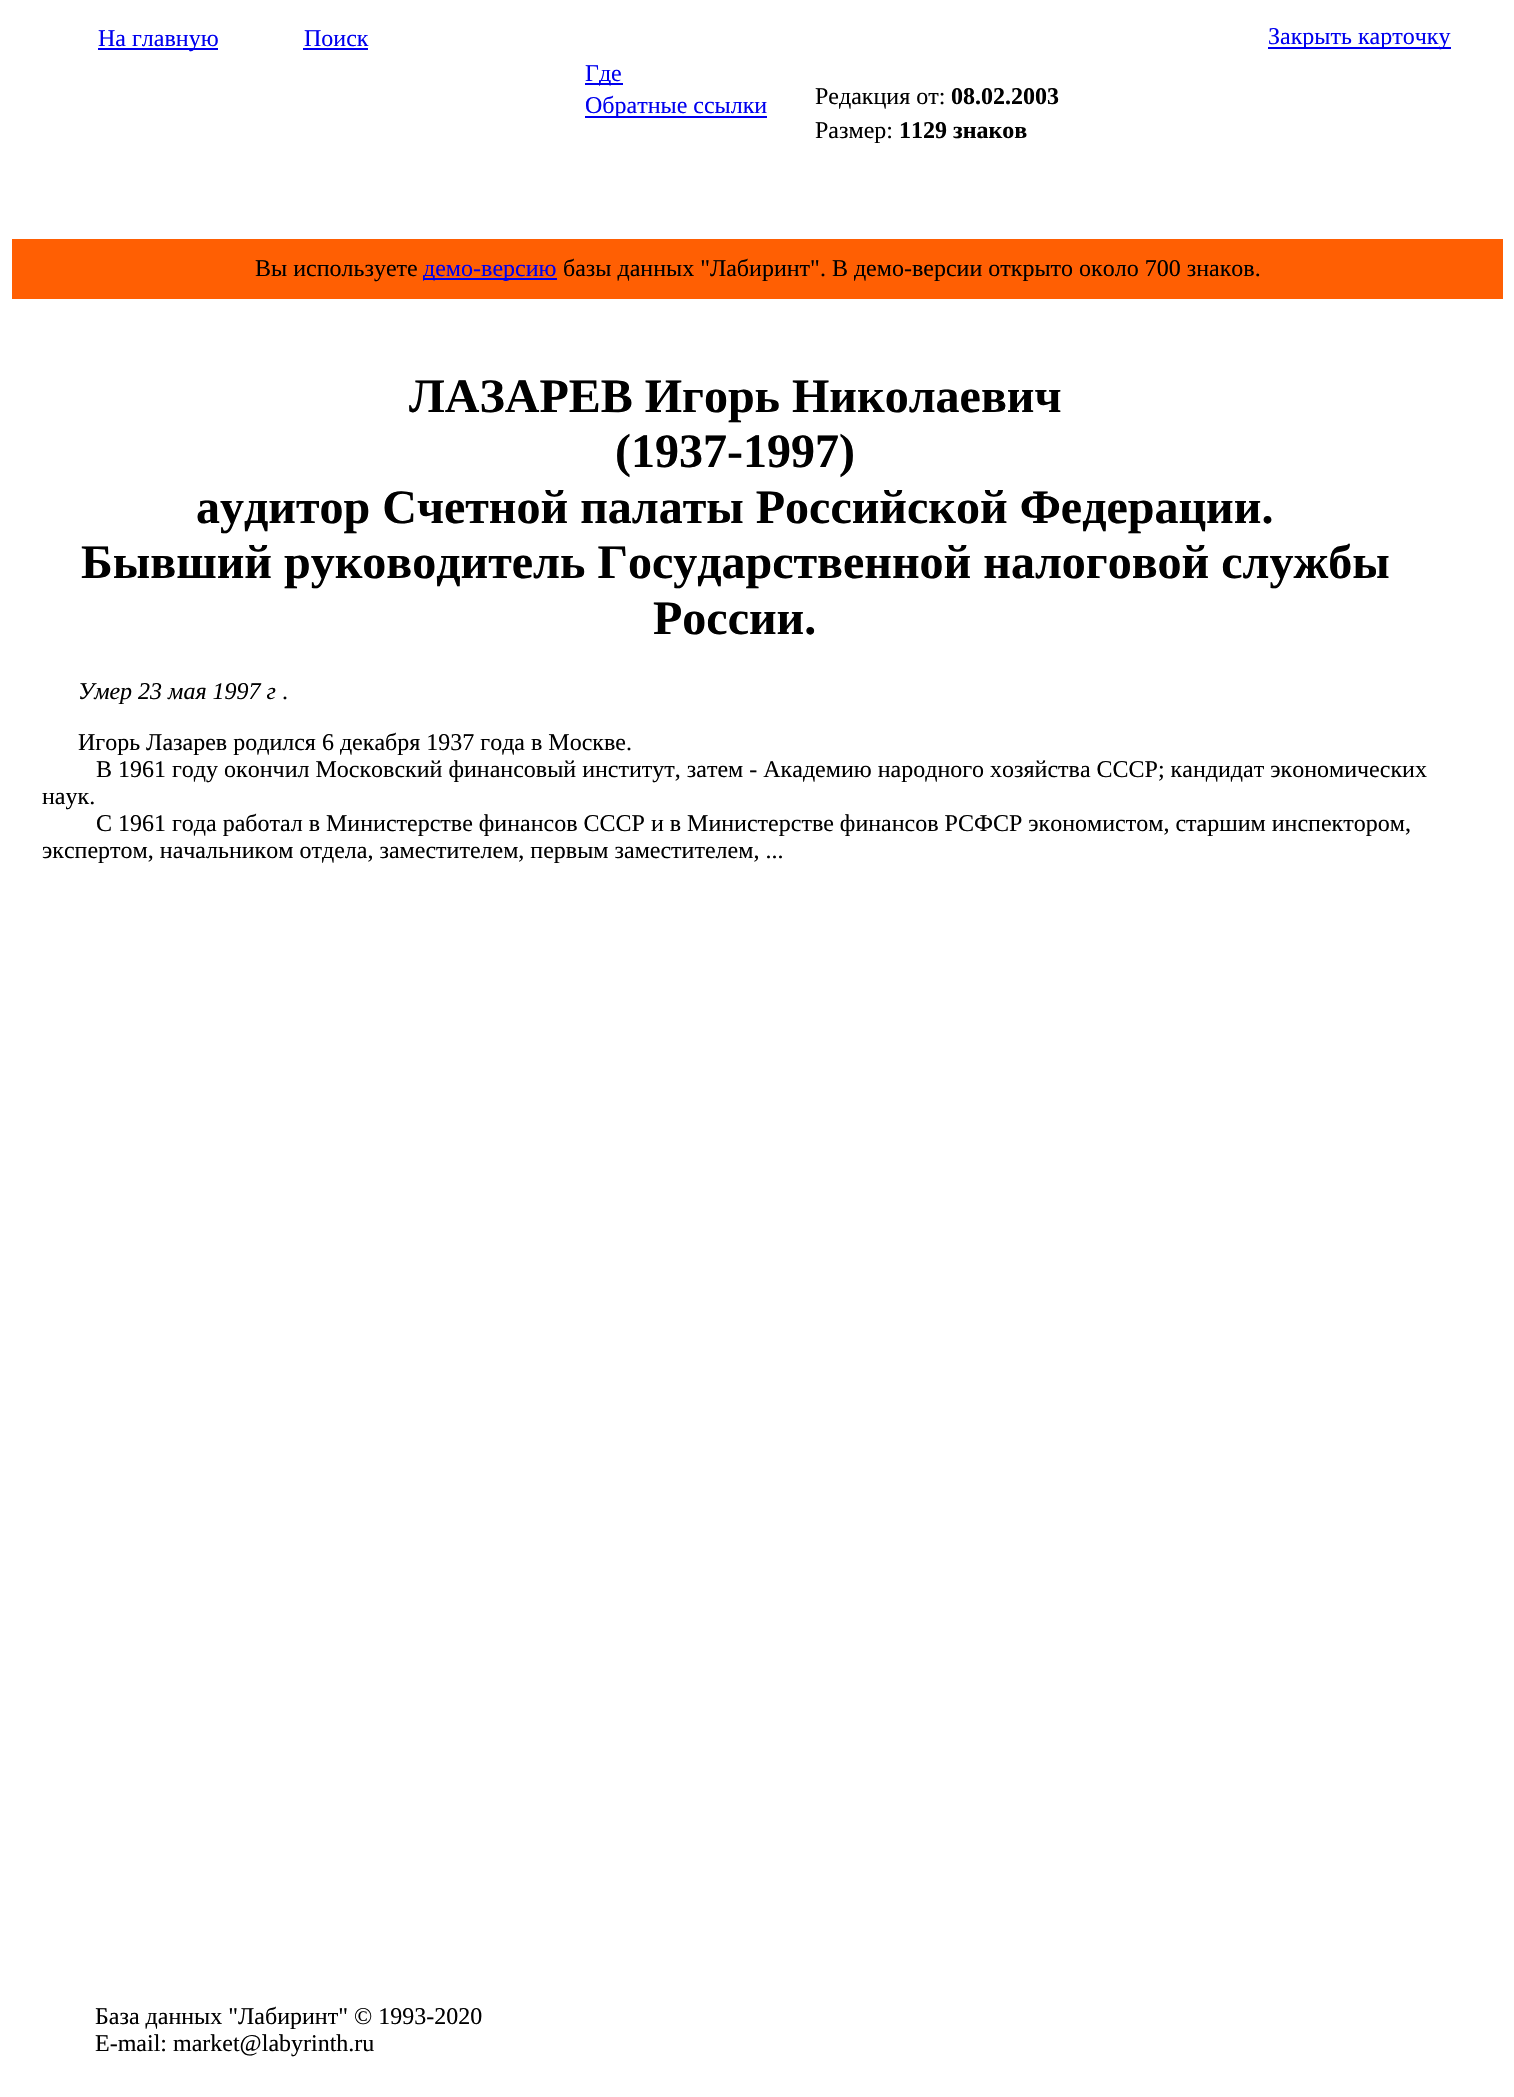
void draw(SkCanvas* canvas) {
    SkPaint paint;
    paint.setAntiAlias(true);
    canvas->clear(0xFFFFFFFF);
    paint.setColor(0xFF0000EE);
    canvas->drawRect(SkRect::MakeXYWH(98, 48, 120, 2), paint);
    SkFont font1(fontMgr->matchFamilyStyle("Liberation Serif", SkFontStyle::Normal()), 24);
    font1.setSubpixel(true);
    canvas->drawString("На главную", 98, 46, font1, paint);
    canvas->drawString("Поиск", 304, 46, font1, paint);
    canvas->drawRect(SkRect::MakeXYWH(303, 48, 65, 2), paint);
    canvas->drawRect(SkRect::MakeXYWH(1268, 47, 183, 2), paint);
    canvas->drawString("Закрыть карточку", 1268, 44, font1, paint);
    paint.setColor(0xFF000000);
    canvas->drawString("Редакция от:", 815, 104, font1, paint);
    SkFont font2(fontMgr->matchFamilyStyle("Liberation Serif", SkFontStyle::Bold()), 24);
    font2.setSubpixel(true);
    canvas->drawString("08.02.2003", 951, 104, font2, paint);
    canvas->drawString("Размер:", 815, 138, font1, paint);
    canvas->drawString("1129 знаков", 899, 138, font2, paint);
    paint.setColor(0xFF0000EE);
    canvas->drawRect(SkRect::MakeXYWH(585, 83, 38, 2), paint);
    canvas->drawString("Где", 585, 81, font1, paint);
    canvas->drawRect(SkRect::MakeXYWH(585, 116, 182, 2), paint);
    canvas->drawString("Обратные ссылки", 585, 113, font1, paint);
    paint.setColor(0xFFFF5F03);
    canvas->drawRect(SkRect::MakeXYWH(12, 239, 1491, 60), paint);
    paint.setColor(0xFF000000);
    canvas->drawString("Вы используете", 255, 276, font1, paint);
    paint.setColor(0xFF0000EE);
    canvas->drawRect(SkRect::MakeXYWH(423, 278, 134, 2), paint);
    canvas->drawString("демо-версию", 423, 276, font1, paint);
    paint.setColor(0xFF000000);
    canvas->drawString("базы данных \"Лабиринт\". В демо-версии открыто около 700 знаков.", 563, 276, font1, paint);
    SkFont font3(fontMgr->matchFamilyStyle("Liberation Serif", SkFontStyle::Bold()), 48);
    font3.setSubpixel(true);
    canvas->drawString("ЛАЗАРЕВ Игорь Николаевич", 409, 412, font3, paint);
    canvas->drawString("(1937-1997)", 615, 467, font3, paint);
    canvas->drawString("аудитор Счетной палаты Российской Федерации.", 196, 523, font3, paint);
    canvas->drawString("Бывший руководитель Государственной налоговой службы", 81, 578, font3, paint);
    canvas->drawString("России.", 653, 634, font3, paint);
    SkFont font4(fontMgr->matchFamilyStyle("Liberation Serif", SkFontStyle::Italic()), 24);
    font4.setSubpixel(true);
    canvas->drawString("Умер 23 мая 1997 г", 78, 699, font4, paint);
    canvas->drawString(".", 282, 699, font1, paint);
    canvas->drawString("Игорь Лазарев родился 6 декабря 1937 года в Москве.", 78, 750, font1, paint);
    canvas->drawString("В 1961 году окончил Московский финансовый институт, затем - Академию народного хозяйства СССР; кандидат экономических", 96, 777, font1, paint);
    canvas->drawString("наук.", 42, 804, font1, paint);
    canvas->drawString("С 1961 года работал в Министерстве финансов СССР и в Министерстве финансов РСФСР экономистом, старшим инспектором,", 96, 831, font1, paint);
    canvas->drawString("экспертом, начальником отдела, заместителем, первым заместителем, ...", 42, 858, font1, paint);
    canvas->drawString("База данных \"Лабиринт\" © 1993-2020", 95, 2024, font1, paint);
    canvas->drawString("E-mail: market@labyrinth.ru", 95, 2051, font1, paint);
}
